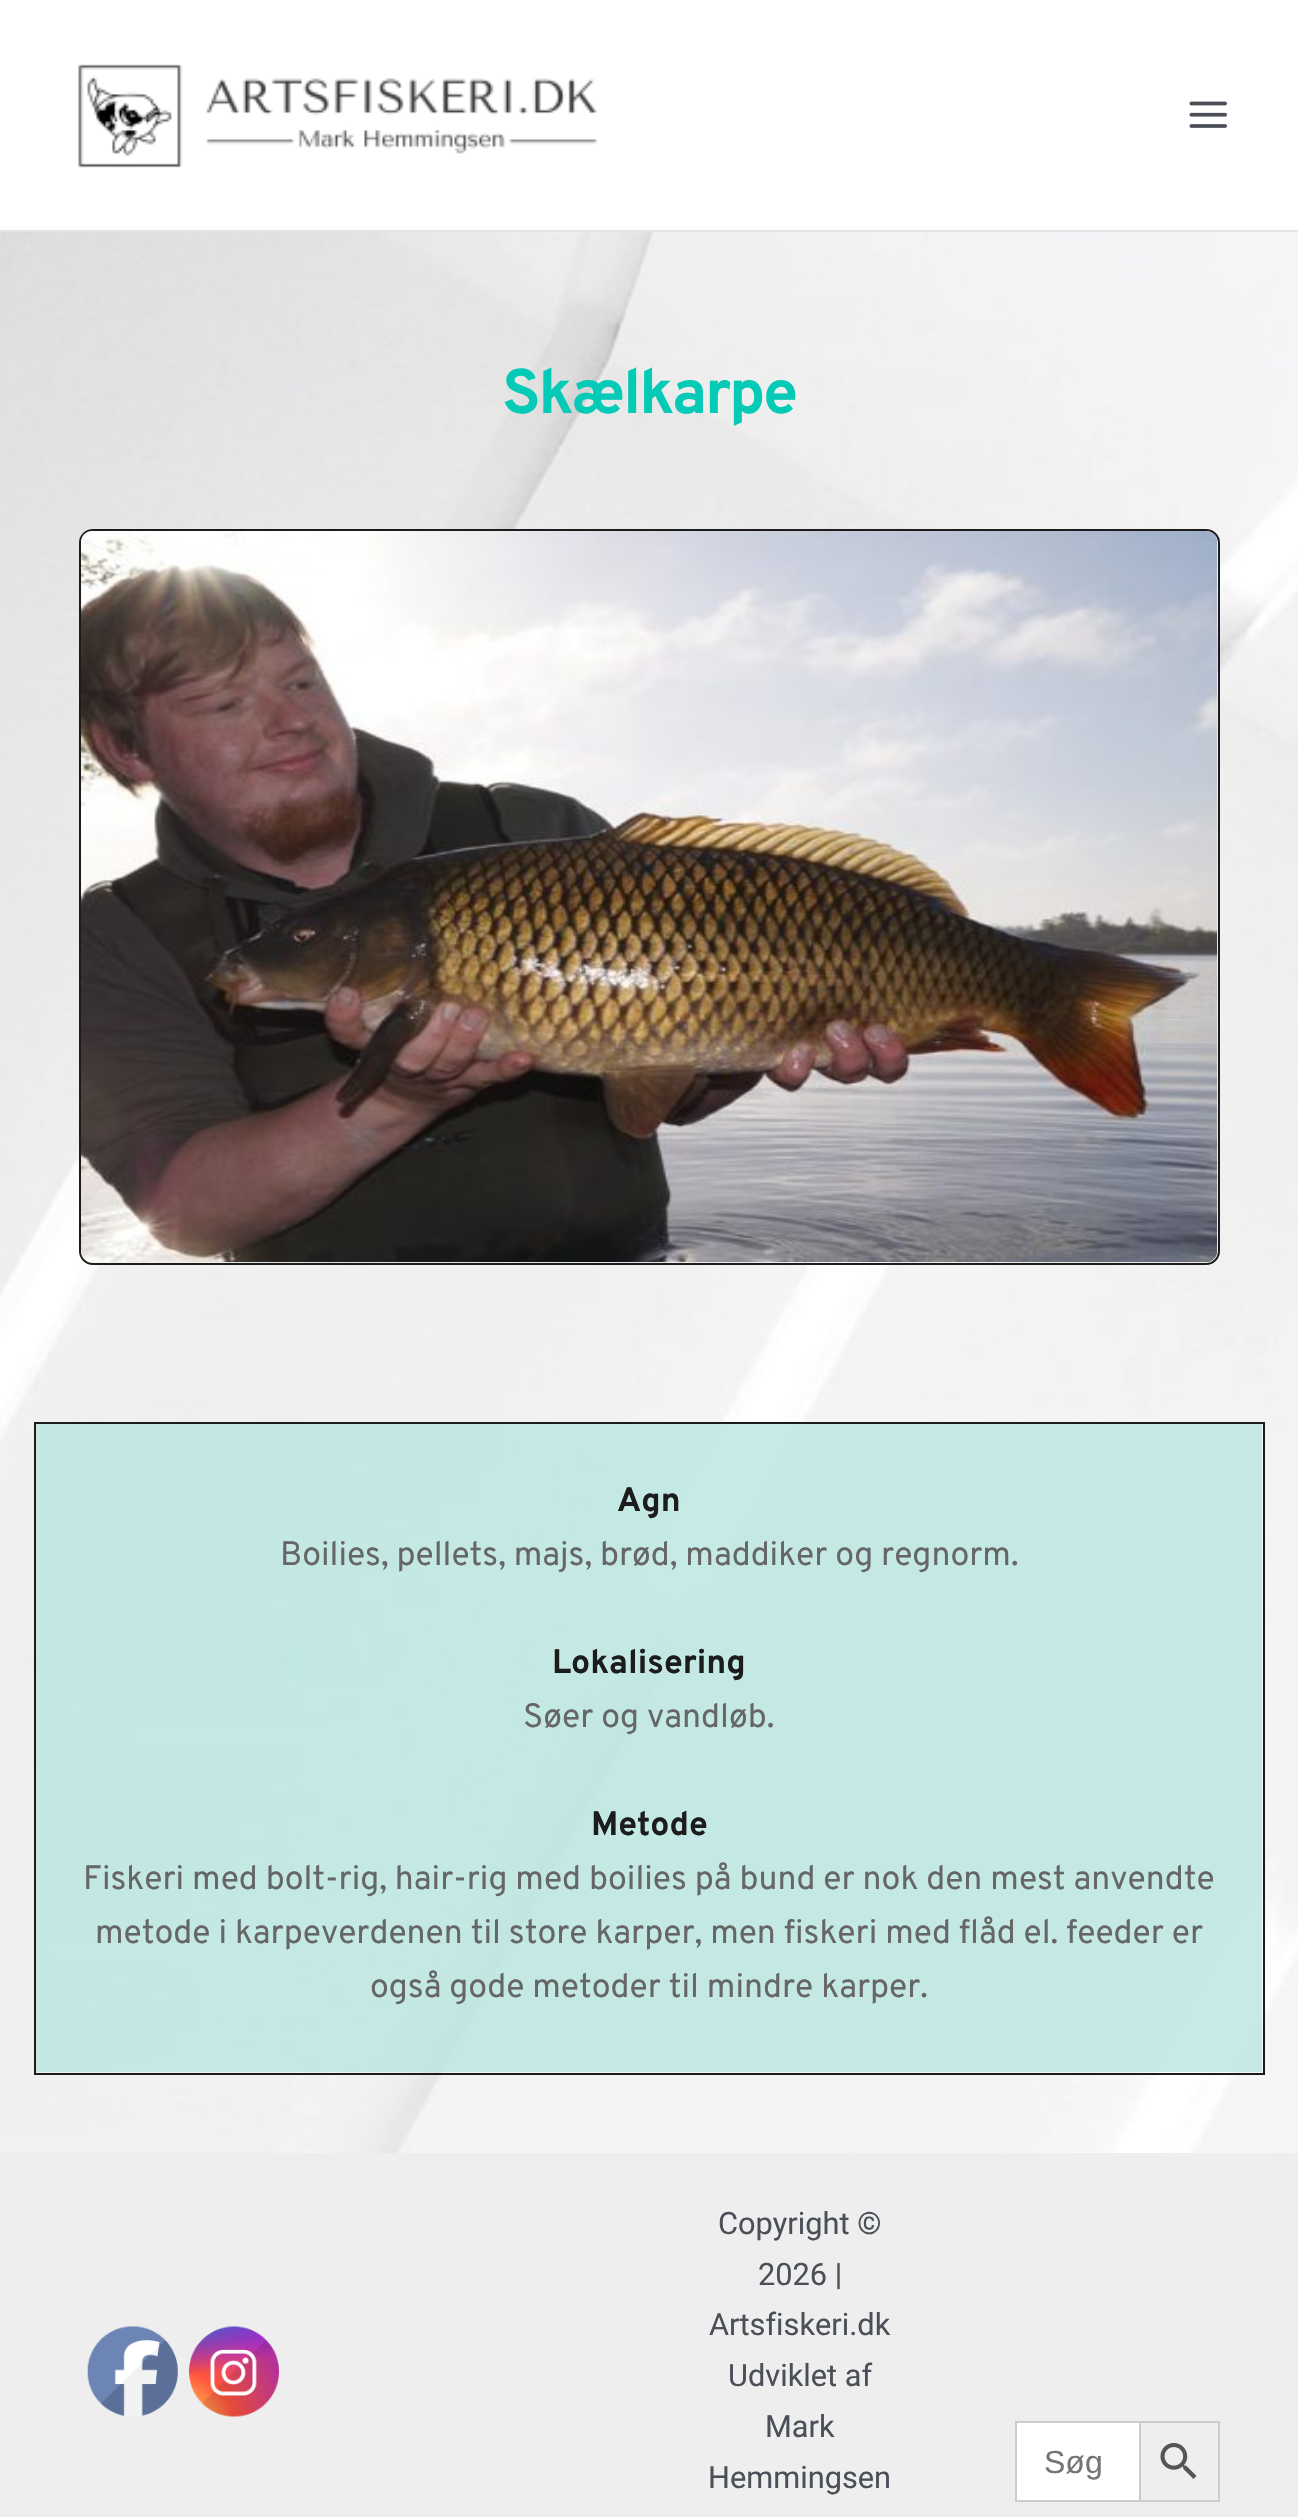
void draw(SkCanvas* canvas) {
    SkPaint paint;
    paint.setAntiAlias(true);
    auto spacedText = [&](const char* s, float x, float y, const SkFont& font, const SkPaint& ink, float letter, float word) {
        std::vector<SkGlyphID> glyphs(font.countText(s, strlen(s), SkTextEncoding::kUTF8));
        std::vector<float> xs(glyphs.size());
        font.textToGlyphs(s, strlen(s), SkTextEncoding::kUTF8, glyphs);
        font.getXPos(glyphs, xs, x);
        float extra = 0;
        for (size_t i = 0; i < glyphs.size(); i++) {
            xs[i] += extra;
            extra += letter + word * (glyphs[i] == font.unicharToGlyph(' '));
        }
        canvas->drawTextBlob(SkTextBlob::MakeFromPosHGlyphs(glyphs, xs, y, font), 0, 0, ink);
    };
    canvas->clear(0xFFEEEEEE);
    paint.setColor(0xFFFFFFFF);
    canvas->drawRect(SkRect::MakeXYWH(0, 0, 1298, 230), paint);
    paint.setColor(0xFFE5E5E5);
    canvas->drawRect(SkRect::MakeXYWH(0, 230, 1298, 2), paint);
    canvas->drawImageRect(SkImages::DeferredFromEncodedData(SkData::MakeFromFileName("img1.png")), SkRect::MakeXYWH(78, 64, 519, 104), SkSamplingOptions());
    canvas->drawImageRect(SkImages::DeferredFromEncodedData(SkData::MakeFromFileName("img2.png")), SkRect::MakeXYWH(1189, 101, 38, 27), SkSamplingOptions());
    canvas->drawImageRect(SkImages::DeferredFromEncodedData(SkData::MakeFromFileName("img3.png")), SkRect::MakeXYWH(0, 232, 1298, 1921), SkSamplingOptions());
    SkFont font1(fontMgr->matchFamilyStyle("Overpass", SkFontStyle::Bold()), 63);
    font1.setSubpixel(true);
    paint.setColor(0xFF05CAB6);
    spacedText("Skælkarpe", 502, 413, font1, paint, -2.25f, 0);
    paint.setStyle(SkPaint::kStroke_Style);
    paint.setStrokeWidth(2);
    paint.setColor(0xFF1C1C1C);
    canvas->drawRoundRect(SkRect::MakeXYWH(80, 530, 1139, 734), 13, 13, paint);
    canvas->drawImageRect(SkImages::DeferredFromEncodedData(SkData::MakeFromFileName("img4.png")), SkRect::MakeXYWH(81, 531, 1137, 732), SkSamplingOptions());
    canvas->drawRect(SkRect::MakeXYWH(35, 1423, 1229, 651), paint);
    paint.setStyle(SkPaint::kFill_Style);
    paint.setColor(0xCCB8E6E1);
    canvas->drawRect(SkRect::MakeXYWH(36, 1424, 1226, 648), paint);
    SkFont font2(fontMgr->matchFamilyStyle("Overpass", SkFontStyle::Bold()), 33.75f);
    font2.setSubpixel(true);
    paint.setColor(0xFF1C1C1C);
    canvas->drawString("Agn", 617, 1511, font2, paint);
    SkFont font3(fontMgr->matchFamilyStyle("Overpass", SkFontStyle::Normal()), 33.75f);
    font3.setSubpixel(true);
    paint.setColor(0xFF666666);
    canvas->drawString("Boilies, pellets, majs, brød, maddiker og regnorm.", 280, 1565, font3, paint);
    paint.setColor(0xFF1C1C1C);
    canvas->drawString("Lokalisering", 552, 1673, font2, paint);
    paint.setColor(0xFF666666);
    canvas->drawString("Søer og vandløb.", 523, 1727, font3, paint);
    paint.setColor(0xFF1C1C1C);
    canvas->drawString("Metode", 591, 1835, font2, paint);
    paint.setColor(0xFF666666);
    canvas->drawString("Fiskeri med bolt-rig, hair-rig med boilies på bund er nok den mest anvendte", 83, 1889, font3, paint);
    canvas->drawString("metode i karpeverdenen til store karper, men fiskeri med flåd el. feeder er", 95, 1943, font3, paint);
    canvas->drawString("også gode metoder til mindre karper.", 370, 1997, font3, paint);
    canvas->drawImageRect(SkImages::DeferredFromEncodedData(SkData::MakeFromFileName("img5.png")), SkRect::MakeXYWH(87, 2326, 91, 90), SkSamplingOptions());
    canvas->drawImageRect(SkImages::DeferredFromEncodedData(SkData::MakeFromFileName("img6.png")), SkRect::MakeXYWH(189, 2326, 90, 91), SkSamplingOptions());
    SkFont font4(fontMgr->matchFamilyStyle("Roboto", SkFontStyle::Normal()), 30.75f);
    font4.setSubpixel(true);
    paint.setColor(0xFF4B4F58);
    canvas->drawString("Copyright ©", 718, 2234, font4, paint);
    canvas->drawString("2026 |", 758, 2285, font4, paint);
    canvas->drawString("Artsfiskeri.dk", 709, 2335, font4, paint);
    canvas->drawString("Udviklet af", 728, 2386, font4, paint);
    canvas->drawString("Mark", 765, 2437, font4, paint);
    canvas->drawString("Hemmingsen", 708, 2488, font4, paint);
    paint.setColor(0xFFFFFFFF);
    canvas->drawRect(SkRect::MakeXYWH(1017, 2423, 122, 77), paint);
    paint.setColor(0xFFCCCCCC);
    canvas->drawRect(SkRect::MakeXYWH(1015, 2421, 124, 2), paint);
    canvas->drawRect(SkRect::MakeXYWH(1015, 2500, 124, 2), paint);
    canvas->drawRect(SkRect::MakeXYWH(1015, 2421, 2, 81), paint);
    SkFont font5(fontMgr->matchFamilyStyle("Liberation Sans", SkFontStyle::Normal()), 32);
    font5.setSubpixel(true);
    paint.setColor(0xFF757575);
    canvas->drawString("Søg", 1044, 2473, font5, paint);
    paint.setStyle(SkPaint::kStroke_Style);
    paint.setColor(0xFFCCCCCC);
    canvas->drawRect(SkRect::MakeXYWH(1140, 2422, 79, 79), paint);
    canvas->drawImageRect(SkImages::DeferredFromEncodedData(SkData::MakeFromFileName("img7.png")), SkRect::MakeXYWH(1160, 2442, 37, 37), SkSamplingOptions());
}
